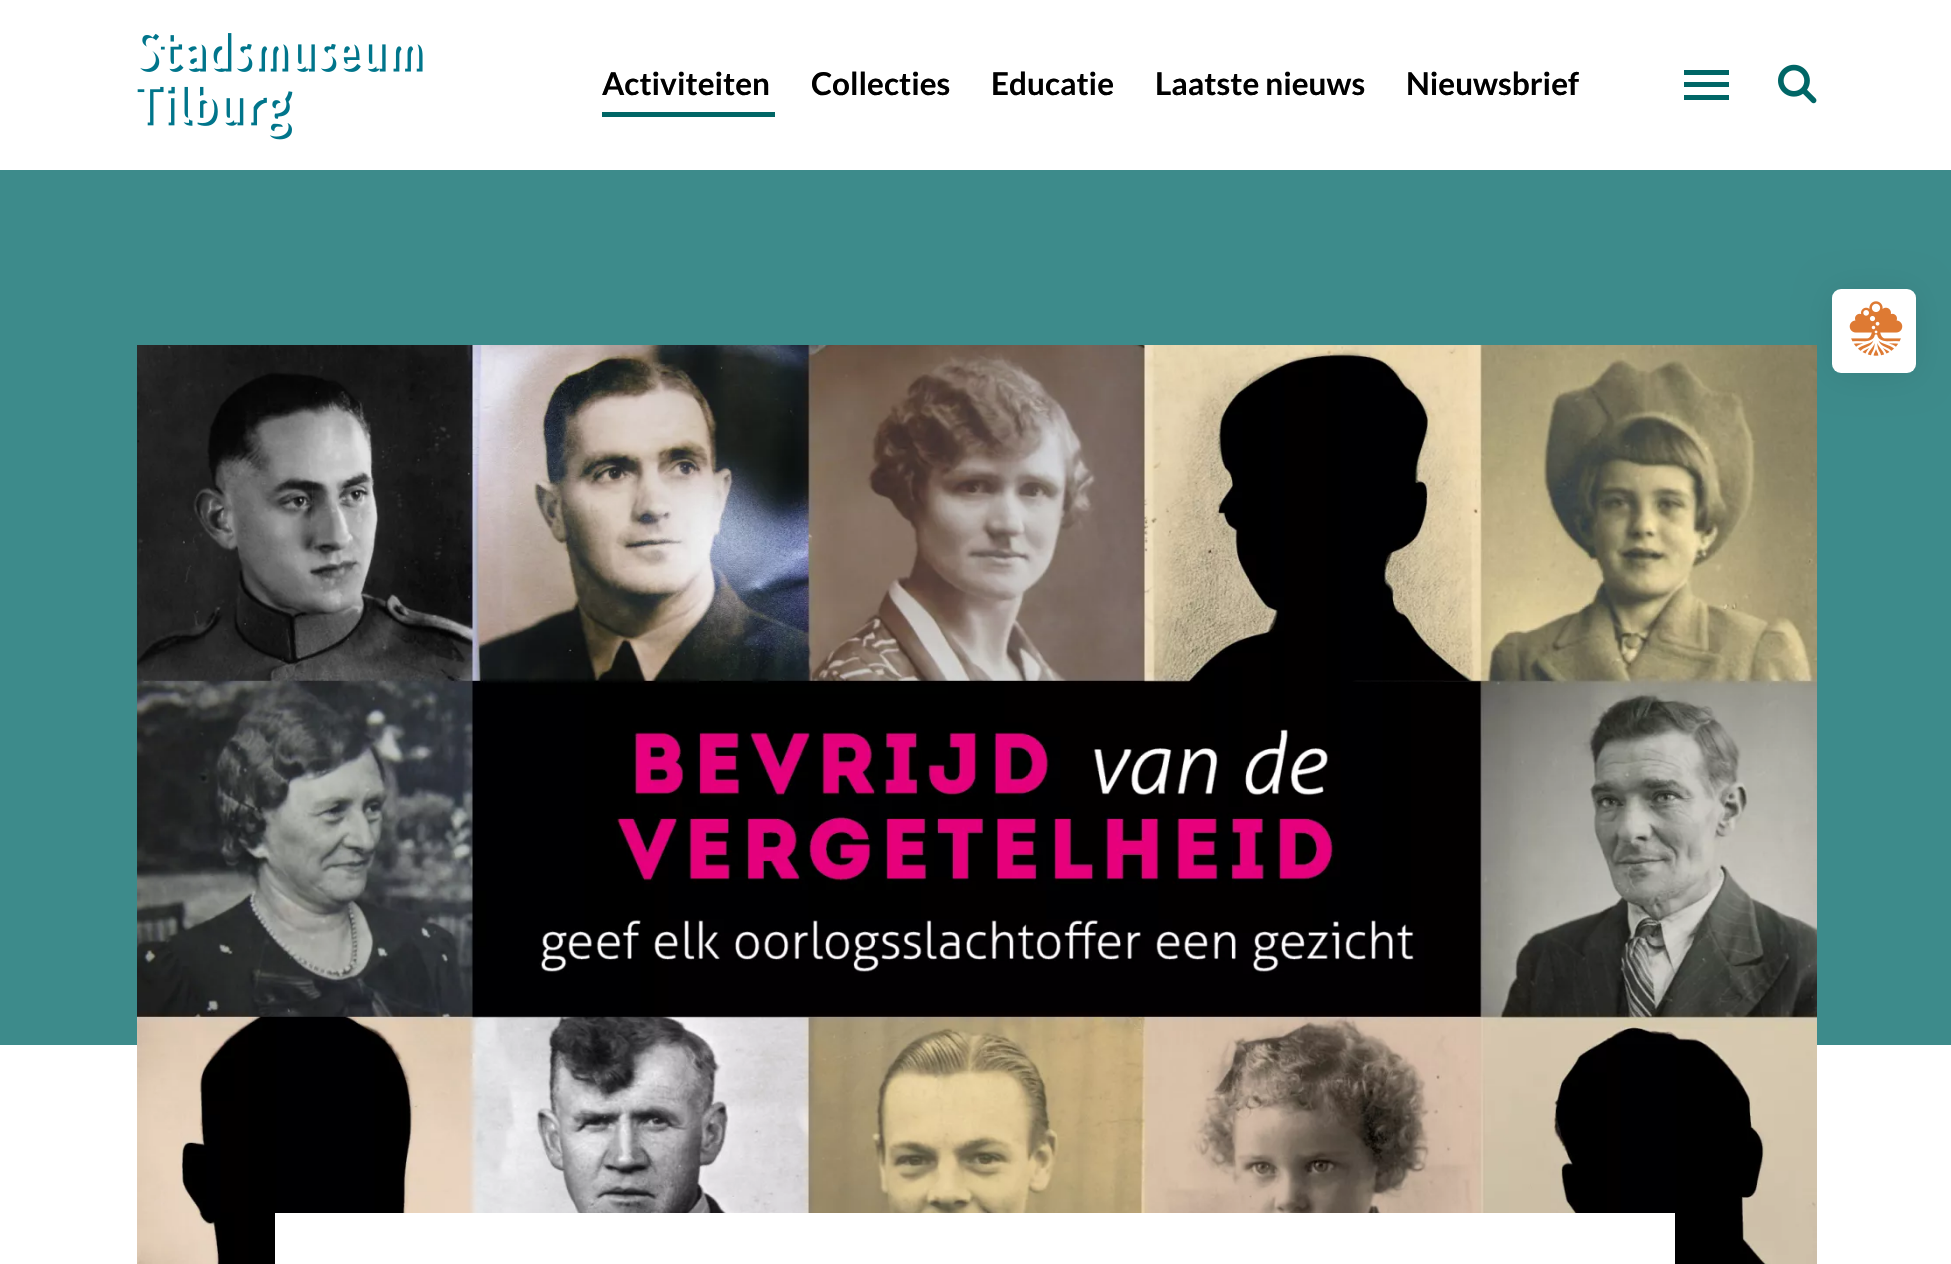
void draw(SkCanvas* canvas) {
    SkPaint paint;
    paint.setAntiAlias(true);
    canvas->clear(0xFFFFFFFF);
    canvas->drawImageRect(SkImages::DeferredFromEncodedData(SkData::MakeFromFileName("img1.png")), SkRect::MakeXYWH(137, 33, 286, 107), SkSamplingOptions());
    SkFont font1(fontMgr->matchFamilyStyle("Lato", SkFontStyle::Bold()), 31.5f);
    font1.setSubpixel(true);
    paint.setColor(0xFF000000);
    canvas->drawString("Activiteiten", 602, 95, font1, paint);
    paint.setColor(0xFF006666);
    canvas->drawRect(SkRect::MakeXYWH(602, 112, 173, 5), paint);
    paint.setColor(0xFF000000);
    canvas->drawString("Collecties", 811, 95, font1, paint);
    canvas->drawString("Educatie", 991, 95, font1, paint);
    canvas->drawString("Laatste nieuws", 1155, 95, font1, paint);
    canvas->drawString("Nieuwsbrief", 1406, 95, font1, paint);
    paint.setColor(0xFF006666);
    canvas->drawRect(SkRect::MakeXYWH(1684, 70, 45, 5), paint);
    canvas->drawRect(SkRect::MakeXYWH(1684, 82, 45, 5), paint);
    canvas->drawRect(SkRect::MakeXYWH(1684, 95, 45, 5), paint);
    canvas->drawImageRect(SkImages::DeferredFromEncodedData(SkData::MakeFromFileName("img2.png")), SkRect::MakeXYWH(1778, 64, 39, 40), SkSamplingOptions());
    paint.setColor(0xFF3D8B8B);
    canvas->drawRect(SkRect::MakeXYWH(0, 170, 1951, 875), paint);
    canvas->drawImageRect(SkImages::DeferredFromEncodedData(SkData::MakeFromFileName("img4.png")), SkRect::MakeXYWH(137, 345, 1680, 919), SkSamplingOptions());
    paint.setColor(0x17000000);
    paint.setMaskFilter(SkMaskFilter::MakeBlur(kNormal_SkBlurStyle, 17.5f));
    canvas->drawRoundRect(SkRect::MakeXYWH(1832, 291, 84, 84), 9, 9, paint);
    paint.setMaskFilter(nullptr);
    paint.setColor(0xFFFFFFFF);
    canvas->drawRoundRect(SkRect::MakeXYWH(1832, 289, 84, 84), 9, 9, paint);
    canvas->drawImageRect(SkImages::DeferredFromEncodedData(SkData::MakeFromFileName("img3.png")), SkRect::MakeXYWH(1849, 301, 54, 55), SkSamplingOptions());
    canvas->drawRect(SkRect::MakeXYWH(275, 1213, 1400, 51), paint);
}
